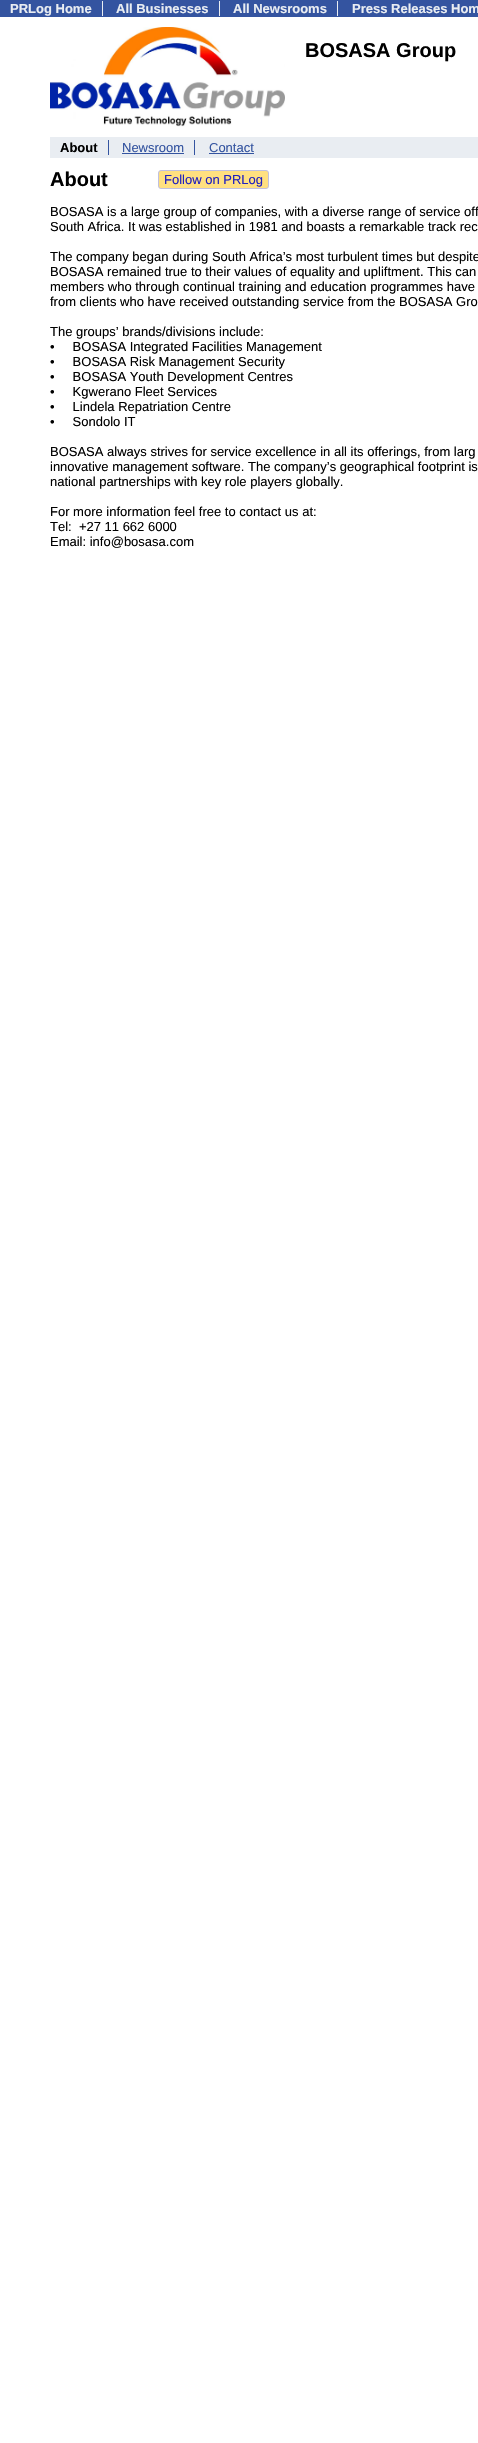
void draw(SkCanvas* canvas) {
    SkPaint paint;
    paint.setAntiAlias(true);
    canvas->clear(0xFFFFFFFF);
    paint.setColor(0xFF3454A0);
    canvas->drawRect(SkRect::MakeXYWH(0, 0, 478, 17), paint);
    paint.setColor(0xFFE9EDF2);
    canvas->drawRect(SkRect::MakeXYWH(102, 1, 1, 15), paint);
    SkFont font1(fontMgr->matchFamilyStyle("Liberation Sans", SkFontStyle::Bold()), 13);
    font1.setSubpixel(true);
    canvas->drawString("PRLog Home", 10, 13, font1, paint);
    canvas->drawRect(SkRect::MakeXYWH(219, 1, 1, 15), paint);
    canvas->drawString("All Businesses", 116, 13, font1, paint);
    canvas->drawRect(SkRect::MakeXYWH(337, 1, 1, 15), paint);
    canvas->drawString("All Newsrooms", 233, 13, font1, paint);
    canvas->drawString("Press Releases Hom", 352, 13, font1, paint);
    canvas->drawImageRect(SkImages::DeferredFromEncodedData(SkData::MakeFromFileName("img1.png")), SkRect::MakeXYWH(50, 27, 235, 100), SkSamplingOptions());
    SkFont font2(fontMgr->matchFamilyStyle("Liberation Sans", SkFontStyle::Bold()), 20);
    font2.setSubpixel(true);
    paint.setColor(0xFF000000);
    canvas->drawString("BOSASA Group", 305, 57, font2, paint);
    paint.setColor(0xFFE9EDF2);
    canvas->drawRect(SkRect::MakeXYWH(50, 137, 428, 21), paint);
    paint.setColor(0xFF3454A0);
    canvas->drawRect(SkRect::MakeXYWH(108, 140, 1, 15), paint);
    paint.setColor(0xFF000000);
    canvas->drawString("About", 60, 152, font1, paint);
    paint.setColor(0xFF3454A0);
    canvas->drawRect(SkRect::MakeXYWH(194, 140, 1, 15), paint);
    SkFont font3(fontMgr->matchFamilyStyle("Liberation Sans", SkFontStyle::Normal()), 13);
    font3.setSubpixel(true);
    canvas->drawString("Newsroom", 122, 152, font3, paint);
    canvas->drawRect(SkRect::MakeXYWH(122, 153, 62, 1), paint);
    canvas->drawString("Contact", 209, 152, font3, paint);
    canvas->drawRect(SkRect::MakeXYWH(209, 153, 45, 1), paint);
    paint.setColor(0xFF000000);
    canvas->drawString("About", 50, 186, font2, paint);
    paint.setColor(0xFFFFE080);
    canvas->drawRoundRect(SkRect::MakeXYWH(158.5f, 170.5f, 110, 18), 2.5f, 2.5f, paint);
    paint.setStyle(SkPaint::kStroke_Style);
    paint.setStrokeWidth(1);
    paint.setColor(0xFFC0C0E0);
    canvas->drawRoundRect(SkRect::MakeXYWH(158.5f, 170.5f, 110, 18), 2.5f, 2.5f, paint);
    paint.setStyle(SkPaint::kFill_Style);
    paint.setColor(0xFF2020C0);
    canvas->drawString("Follow on PRLog", 164, 184, font3, paint);
    paint.setColor(0xFF000000);
    canvas->drawString("BOSASA is a large group of companies, with a diverse range of service off", 50, 216, font3, paint);
    canvas->drawString("South Africa. It was established in 1981 and boasts a remarkable track rec", 50, 231, font3, paint);
    canvas->drawString("The company began during South Africa’s most turbulent times but despite", 50, 261, font3, paint);
    canvas->drawString("BOSASA remained true to their values of equality and upliftment. This can", 50, 276, font3, paint);
    canvas->drawString("members who through continual training and education programmes have", 50, 291, font3, paint);
    canvas->drawString("from clients who have received outstanding service from the BOSASA Gro", 50, 306, font3, paint);
    canvas->drawString("The groups’ brands/divisions include:", 50, 336, font3, paint);
    canvas->drawString("•     BOSASA Integrated Facilities Management", 50, 351, font3, paint);
    canvas->drawString("•     BOSASA Risk Management Security", 50, 366, font3, paint);
    canvas->drawString("•     BOSASA Youth Development Centres", 50, 381, font3, paint);
    canvas->drawString("•     Kgwerano Fleet Services", 50, 396, font3, paint);
    canvas->drawString("•     Lindela Repatriation Centre", 50, 411, font3, paint);
    canvas->drawString("•     Sondolo IT", 50, 426, font3, paint);
    canvas->drawString("BOSASA always strives for service excellence in all its offerings, from larg", 50, 456, font3, paint);
    canvas->drawString("innovative management software. The company’s geographical footprint is", 50, 471, font3, paint);
    canvas->drawString("national partnerships with key role players globally.", 50, 486, font3, paint);
    canvas->drawString("For more information feel free to contact us at:", 50, 516, font3, paint);
    canvas->drawString("Tel:  +27 11 662 6000", 50, 531, font3, paint);
    canvas->drawString("Email: info@bosasa.com", 50, 546, font3, paint);
}
